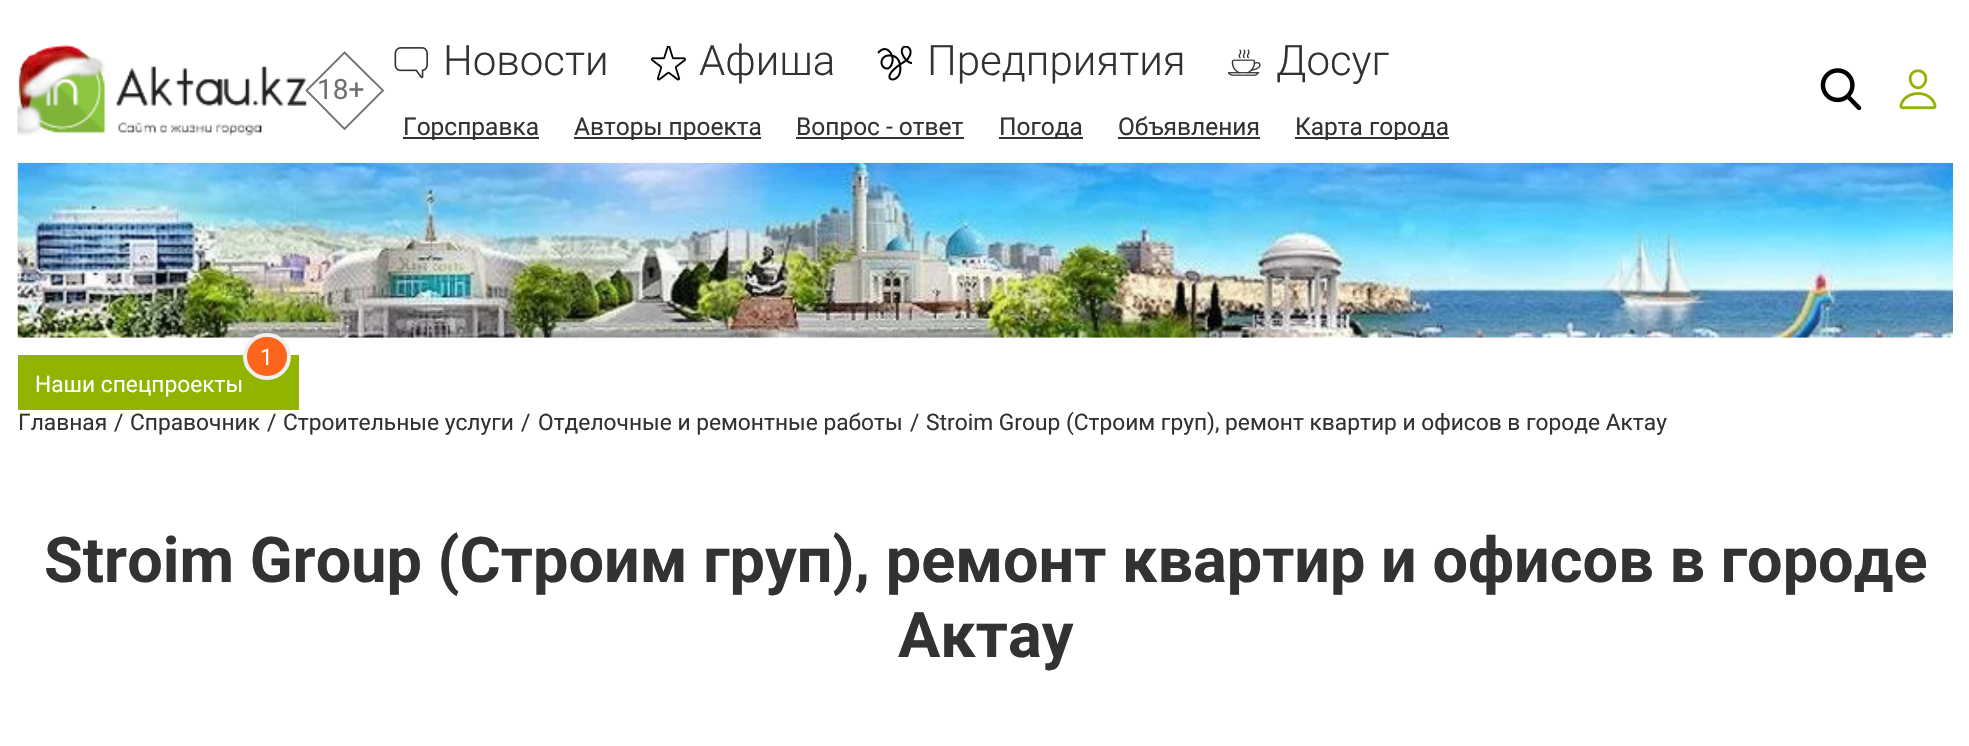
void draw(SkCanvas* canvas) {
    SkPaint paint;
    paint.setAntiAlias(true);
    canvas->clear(0xFFFFFFFF);
    canvas->drawImageRect(SkImages::DeferredFromEncodedData(SkData::MakeFromFileName("img1.png")), SkRect::MakeXYWH(17, 44, 290, 92), SkSamplingOptions());
    paint.setStyle(SkPaint::kStroke_Style);
    paint.setStrokeWidth(1.8f);
    paint.setColor(0xFF707070);
    canvas->drawPath(SkPathBuilder().moveTo(344.5f, 52.5f).lineTo(383, 90.5f).lineTo(344.5f, 129).lineTo(306.5f, 90.5f).close().detach(), paint);
    SkFont font1(fontMgr->matchFamilyStyle("Roboto", SkFontStyle::Normal()), 28);
    font1.setSubpixel(true);
    paint.setStyle(SkPaint::kFill_Style);
    canvas->drawString("18+", 317, 99, font1, paint);
    canvas->drawImageRect(SkImages::DeferredFromEncodedData(SkData::MakeFromFileName("img2.png")), SkRect::MakeXYWH(394, 47, 34, 32), SkSamplingOptions());
    SkFont font2(fontMgr->matchFamilyStyle("Roboto", SkFontStyle(300, SkFontStyle::kNormal_Width, SkFontStyle::kUpright_Slant)), 42);
    font2.setSubpixel(true);
    paint.setColor(0xFF323232);
    canvas->drawString("Новости", 443, 75, font2, paint);
    canvas->drawImageRect(SkImages::DeferredFromEncodedData(SkData::MakeFromFileName("img3.png")), SkRect::MakeXYWH(651, 46, 35, 35), SkSamplingOptions());
    canvas->drawString("Афиша", 699, 75, font2, paint);
    canvas->drawImageRect(SkImages::DeferredFromEncodedData(SkData::MakeFromFileName("img4.png")), SkRect::MakeXYWH(877, 46, 35, 35), SkSamplingOptions());
    canvas->drawString("Предприятия", 927, 75, font2, paint);
    canvas->drawImageRect(SkImages::DeferredFromEncodedData(SkData::MakeFromFileName("img5.png")), SkRect::MakeXYWH(1228, 49, 33, 27), SkSamplingOptions());
    canvas->drawString("Досуг", 1276, 75, font2, paint);
    canvas->drawRect(SkRect::MakeXYWH(403, 137, 136, 2), paint);
    SkFont font3(fontMgr->matchFamilyStyle("Roboto", SkFontStyle::Normal()), 24.5f);
    font3.setSubpixel(true);
    canvas->drawString("Горсправка", 403, 135, font3, paint);
    canvas->drawRect(SkRect::MakeXYWH(574, 137, 187, 2), paint);
    canvas->drawString("Авторы проекта", 574, 135, font3, paint);
    canvas->drawRect(SkRect::MakeXYWH(796, 137, 168, 2), paint);
    canvas->drawString("Вопрос - ответ", 796, 135, font3, paint);
    canvas->drawRect(SkRect::MakeXYWH(999, 137, 84, 2), paint);
    canvas->drawString("Погода", 999, 135, font3, paint);
    canvas->drawString("Объявления", 1118, 135, font3, paint);
    canvas->drawRect(SkRect::MakeXYWH(1118, 137, 142, 2), paint);
    canvas->drawRect(SkRect::MakeXYWH(1295, 137, 154, 2), paint);
    canvas->drawString("Карта города", 1295, 135, font3, paint);
    canvas->drawImageRect(SkImages::DeferredFromEncodedData(SkData::MakeFromFileName("img6.png")), SkRect::MakeXYWH(1820, 68, 42, 42), SkSamplingOptions());
    canvas->drawImageRect(SkImages::DeferredFromEncodedData(SkData::MakeFromFileName("img7.png")), SkRect::MakeXYWH(1899, 69, 38, 41), SkSamplingOptions());
    canvas->drawImageRect(SkImages::DeferredFromEncodedData(SkData::MakeFromFileName("img8.png")), SkRect::MakeXYWH(17, 162, 1936, 176), SkSamplingOptions());
    paint.setColor(0xFF90B400);
    canvas->drawRect(SkRect::MakeXYWH(18, 355, 281, 55), paint);
    paint.setColor(0xFFFB661C);
    canvas->drawRoundRect(SkRect::MakeXYWH(245, 335, 44, 43), 21.5f, 21.5f, paint);
    paint.setStyle(SkPaint::kStroke_Style);
    paint.setStrokeWidth(4);
    paint.setColor(0xFFF0F0F0);
    canvas->drawRoundRect(SkRect::MakeXYWH(245, 335, 44, 43), 21.5f, 21.5f, paint);
    SkFont font4(fontMgr->matchFamilyStyle("Roboto", SkFontStyle::Normal()), 22.75f);
    font4.setSubpixel(true);
    paint.setStyle(SkPaint::kFill_Style);
    paint.setColor(0xFFFFFFFF);
    canvas->drawString("1", 260, 365, font4, paint);
    canvas->drawString("Наши спецпроекты", 35, 392, font4, paint);
    paint.setColor(0xFF323232);
    canvas->drawString("Главная", 18, 430, font4, paint);
    canvas->drawString("/", 114, 430, font4, paint);
    canvas->drawString("Справочник", 130, 430, font4, paint);
    canvas->drawString("/", 267, 430, font4, paint);
    canvas->drawString("Строительные услуги", 283, 430, font4, paint);
    canvas->drawString("/", 521, 430, font4, paint);
    canvas->drawString("Отделочные и ремонтные работы", 538, 430, font4, paint);
    canvas->drawString("/", 910, 430, font4, paint);
    canvas->drawString("Stroim Group (Строим груп), ремонт квартир и офисов в городе Актау", 926, 430, font4, paint);
    SkFont font5(fontMgr->matchFamilyStyle("Roboto", SkFontStyle::Bold()), 63);
    font5.setSubpixel(true);
    canvas->drawString("Stroim Group (Строим груп), ремонт квартир и офисов в городе", 44, 582, font5, paint);
    canvas->drawString("Актау", 898, 657, font5, paint);
}
